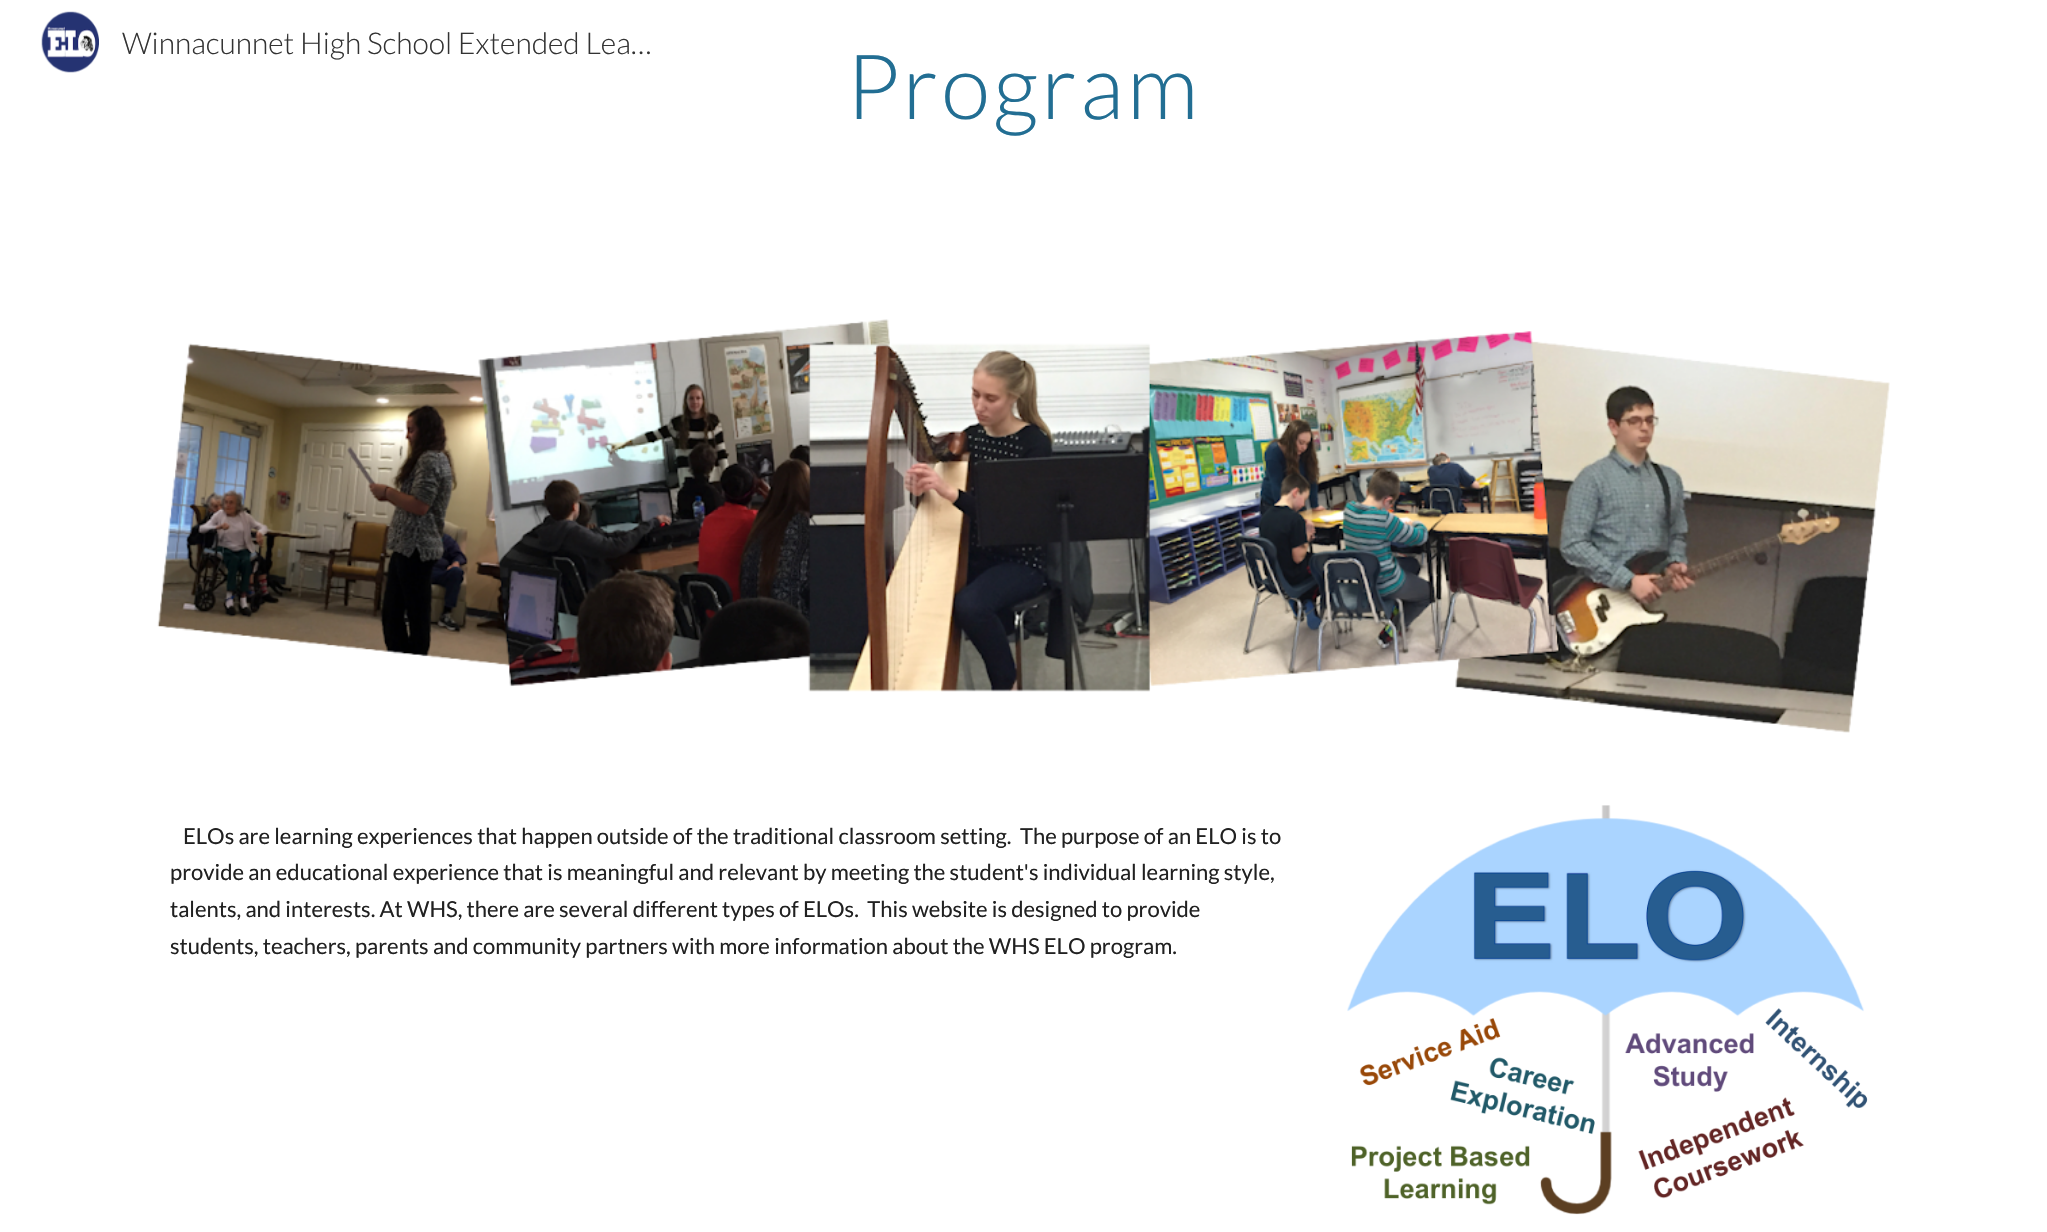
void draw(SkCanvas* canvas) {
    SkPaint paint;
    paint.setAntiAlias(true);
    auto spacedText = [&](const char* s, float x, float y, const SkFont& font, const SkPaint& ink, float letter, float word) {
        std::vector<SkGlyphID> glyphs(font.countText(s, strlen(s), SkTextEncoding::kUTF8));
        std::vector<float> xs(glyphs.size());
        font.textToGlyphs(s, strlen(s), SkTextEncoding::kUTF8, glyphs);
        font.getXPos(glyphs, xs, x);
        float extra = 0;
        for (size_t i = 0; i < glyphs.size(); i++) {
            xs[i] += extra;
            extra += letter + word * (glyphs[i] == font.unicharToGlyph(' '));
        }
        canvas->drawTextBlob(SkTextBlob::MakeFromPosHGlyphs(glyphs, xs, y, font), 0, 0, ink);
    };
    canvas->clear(0xFFFFFFFF);
    canvas->drawImageRect(SkImages::DeferredFromEncodedData(SkData::MakeFromFileName("img1.png")), SkRect::MakeXYWH(41, 11, 58, 62), SkSamplingOptions());
    SkFont font1(fontMgr->matchFamilyStyle("Lato", SkFontStyle(300, SkFontStyle::kNormal_Width, SkFontStyle::kUpright_Slant)), 30);
    font1.setSubpixel(true);
    paint.setColor(0xFF333333);
    canvas->drawString("Winnacunnet High School Extended Lea…", 122, 54, font1, paint);
    SkFont font2(fontMgr->matchFamilyStyle("Lato", SkFontStyle(300, SkFontStyle::kNormal_Width, SkFontStyle::kUpright_Slant)), 90);
    font2.setSubpixel(true);
    paint.setColor(0xFF226E93);
    spacedText("Program", 846, 119, font2, paint, 3, 0);
    canvas->drawImageRect(SkImages::DeferredFromEncodedData(SkData::MakeFromFileName("img2.png")), SkRect::MakeXYWH(157, 319, 1733, 414), SkSamplingOptions());
    SkFont font3(fontMgr->matchFamilyStyle("Lato", SkFontStyle::Normal()), 22);
    font3.setSubpixel(true);
    paint.setColor(0xFF212121);
    canvas->drawString("ELOs are learning experiences that happen outside of the traditional classroom setting.  The purpose of an ELO is to", 183, 844, font3, paint);
    canvas->drawString("provide an educational experience that is meaningful and relevant by meeting the student's individual learning style,", 170, 880, font3, paint);
    canvas->drawString("talents, and interests. At WHS, there are several different types of ELOs.  This website is designed to provide", 170, 917, font3, paint);
    canvas->drawString("students, teachers, parents and community partners with more information about the WHS ELO program.", 170, 954, font3, paint);
    canvas->drawImageRect(SkImages::DeferredFromEncodedData(SkData::MakeFromFileName("img3.png")), SkRect::MakeXYWH(1347, 805, 521, 410), SkSamplingOptions());
}
